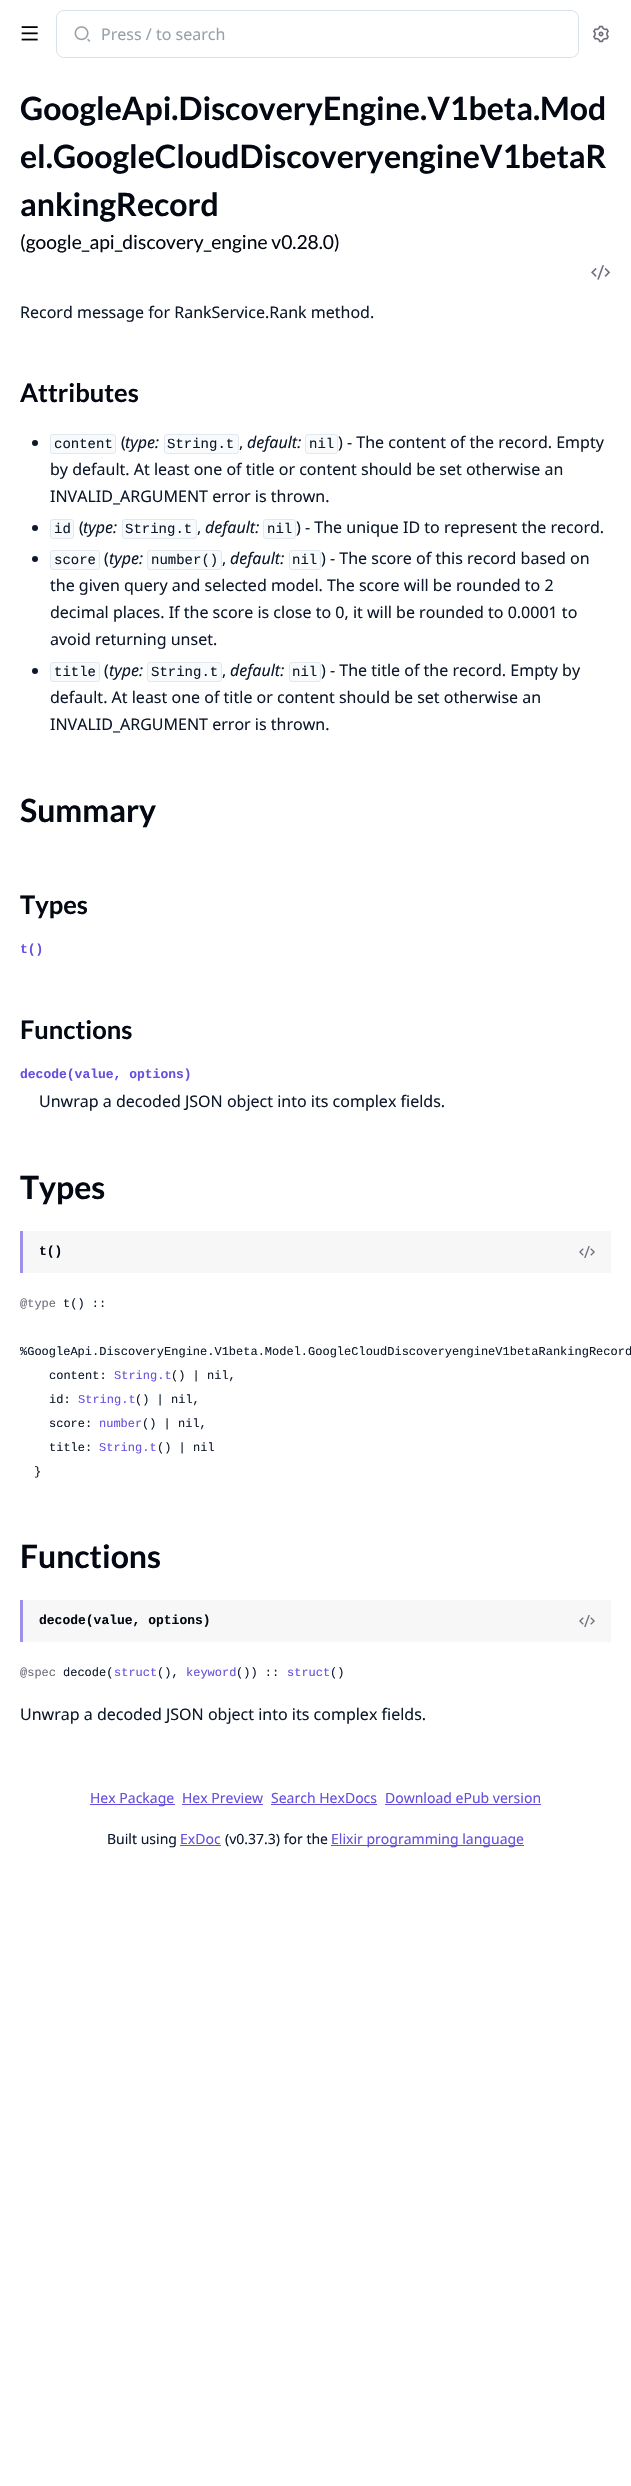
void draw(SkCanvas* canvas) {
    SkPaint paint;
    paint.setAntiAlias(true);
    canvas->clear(0xFFFFFFFF);
    canvas->drawImageRect(SkImages::DeferredFromEncodedData(SkData::MakeFromFileName("img1.png")), SkRect::MakeXYWH(21, 26, 17, 15), SkSamplingOptions());
    paint.setStyle(SkPaint::kStroke_Style);
    paint.setStrokeWidth(1);
    paint.setColor(0xFFD8E0E9);
    canvas->drawRoundRect(SkRect::MakeXYWH(56.5f, 10.5f, 522, 47), 7.5f, 7.5f, paint);
    paint.setStyle(SkPaint::kFill_Style);
    paint.setColor(0xFFFFFFFF);
    canvas->drawRoundRect(SkRect::MakeXYWH(57, 11, 521, 46), 8, 8, paint);
    canvas->drawImageRect(SkImages::DeferredFromEncodedData(SkData::MakeFromFileName("img2.png")), SkRect::MakeXYWH(74, 26, 17, 16), SkSamplingOptions());
    SkFont font1(fontMgr->matchFamilyStyle("Noto Sans", SkFontStyle::Normal()), 16);
    font1.setSubpixel(true);
    paint.setColor(0xFF98A1AA);
    canvas->drawString("Press / to search", 101, 40, font1, paint);
    canvas->drawImageRect(SkImages::DeferredFromEncodedData(SkData::MakeFromFileName("img3.png")), SkRect::MakeXYWH(593, 25, 16, 18), SkSamplingOptions());
    SkFont font2(fontMgr->matchFamilyStyle("Lato", SkFontStyle::Bold()), 32);
    font2.setSubpixel(true);
    paint.setColor(0xFF030812);
    canvas->drawString("GoogleApi.DiscoveryEngine.V1beta.Mod", 20, 120, font2, paint);
    canvas->drawString("el.GoogleCloudDiscoveryengineV1betaR", 20, 168, font2, paint);
    canvas->drawString("ankingRecord", 20, 216, font2, paint);
    SkFont font3(fontMgr->matchFamilyStyle("Lato", SkFontStyle::Normal()), 19.25f);
    font3.setSubpixel(true);
    canvas->drawString("(google_api_discovery_engine v0.28.0)", 20, 249, font3, paint);
    canvas->drawImageRect(SkImages::DeferredFromEncodedData(SkData::MakeFromFileName("img4.png")), SkRect::MakeXYWH(591, 265, 20, 15), SkSamplingOptions());
    paint.setColor(0xFF0D192B);
    canvas->drawString("Record message for RankService.Rank method.", 20, 318, font1, paint);
    SkFont font4(fontMgr->matchFamilyStyle("Lato", SkFontStyle::Bold()), 25.5f);
    font4.setSubpixel(true);
    paint.setColor(0xFF030812);
    canvas->drawString("Attributes", 20, 402, font4, paint);
    paint.setColor(0xFF0D192B);
    canvas->drawCircle(35, 443, 3, paint);
    paint.setColor(0xFFF8FAFC);
    canvas->drawRoundRect(SkRect::MakeXYWH(50.5f, 434.5f, 65, 19), 2.5f, 2.5f, paint);
    paint.setStyle(SkPaint::kStroke_Style);
    paint.setColor(0xFFE0E8F0);
    canvas->drawRoundRect(SkRect::MakeXYWH(50.5f, 434.5f, 65, 19), 2.5f, 2.5f, paint);
    SkFont font5(fontMgr->matchFamilyStyle("Liberation Mono", SkFontStyle::Normal()), 14);
    font5.setSubpixel(true);
    paint.setStyle(SkPaint::kFill_Style);
    paint.setColor(0xFF0D192B);
    canvas->drawString("content", 54, 448, font5, paint);
    canvas->drawString("(", 121, 448, font1, paint);
    SkFont font6(fontMgr->matchFamilyStyle("Noto Sans", SkFontStyle::Italic()), 16);
    font6.setSubpixel(true);
    canvas->drawString("type:", 125, 448, font6, paint);
    paint.setColor(0xFFF8FAFC);
    canvas->drawRoundRect(SkRect::MakeXYWH(164.5f, 434.5f, 74, 19), 2.5f, 2.5f, paint);
    paint.setStyle(SkPaint::kStroke_Style);
    paint.setColor(0xFFE0E8F0);
    canvas->drawRoundRect(SkRect::MakeXYWH(164.5f, 434.5f, 74, 19), 2.5f, 2.5f, paint);
    paint.setStyle(SkPaint::kFill_Style);
    paint.setColor(0xFF0D192B);
    canvas->drawString("String.t", 167, 448, font5, paint);
    canvas->drawString("default:", 247, 448, font6, paint);
    paint.setColor(0xFFF8FAFC);
    canvas->drawRoundRect(SkRect::MakeXYWH(305.5f, 434.5f, 32, 19), 2.5f, 2.5f, paint);
    paint.setStyle(SkPaint::kStroke_Style);
    paint.setColor(0xFFE0E8F0);
    canvas->drawRoundRect(SkRect::MakeXYWH(305.5f, 434.5f, 32, 19), 2.5f, 2.5f, paint);
    paint.setStyle(SkPaint::kFill_Style);
    paint.setColor(0xFF0D192B);
    canvas->drawString("nil", 309, 448, font5, paint);
    canvas->drawString(") - The content of the record. Empty", 338, 448, font1, paint);
    canvas->drawString(",", 239, 448, font1, paint);
    canvas->drawString("by default. At least one of title or content should be set otherwise an", 50, 475, font1, paint);
    canvas->drawString("INVALID_ARGUMENT error is thrown.", 50, 502, font1, paint);
    canvas->drawCircle(35, 528, 3, paint);
    paint.setColor(0xFFF8FAFC);
    canvas->drawRoundRect(SkRect::MakeXYWH(50.5f, 519.5f, 23, 19), 2.5f, 2.5f, paint);
    paint.setStyle(SkPaint::kStroke_Style);
    paint.setColor(0xFFE0E8F0);
    canvas->drawRoundRect(SkRect::MakeXYWH(50.5f, 519.5f, 23, 19), 2.5f, 2.5f, paint);
    paint.setStyle(SkPaint::kFill_Style);
    paint.setColor(0xFF0D192B);
    canvas->drawString("id", 54, 533, font5, paint);
    canvas->drawString("(", 79, 533, font1, paint);
    canvas->drawString("type:", 83, 533, font6, paint);
    paint.setColor(0xFFF8FAFC);
    canvas->drawRoundRect(SkRect::MakeXYWH(122.5f, 519.5f, 74, 19), 2.5f, 2.5f, paint);
    paint.setStyle(SkPaint::kStroke_Style);
    paint.setColor(0xFFE0E8F0);
    canvas->drawRoundRect(SkRect::MakeXYWH(122.5f, 519.5f, 74, 19), 2.5f, 2.5f, paint);
    paint.setStyle(SkPaint::kFill_Style);
    paint.setColor(0xFF0D192B);
    canvas->drawString("String.t", 125, 533, font5, paint);
    canvas->drawString("default:", 205, 533, font6, paint);
    paint.setColor(0xFFF8FAFC);
    canvas->drawRoundRect(SkRect::MakeXYWH(263.5f, 519.5f, 32, 19), 2.5f, 2.5f, paint);
    paint.setStyle(SkPaint::kStroke_Style);
    paint.setColor(0xFFE0E8F0);
    canvas->drawRoundRect(SkRect::MakeXYWH(263.5f, 519.5f, 32, 19), 2.5f, 2.5f, paint);
    paint.setStyle(SkPaint::kFill_Style);
    paint.setColor(0xFF0D192B);
    canvas->drawString("nil", 267, 533, font5, paint);
    canvas->drawString(") - The unique ID to represent the record.", 296, 533, font1, paint);
    canvas->drawString(",", 197, 533, font1, paint);
    canvas->drawCircle(35, 559, 3, paint);
    paint.setColor(0xFFF8FAFC);
    canvas->drawRoundRect(SkRect::MakeXYWH(50.5f, 550.5f, 49, 19), 2.5f, 2.5f, paint);
    paint.setStyle(SkPaint::kStroke_Style);
    paint.setColor(0xFFE0E8F0);
    canvas->drawRoundRect(SkRect::MakeXYWH(50.5f, 550.5f, 49, 19), 2.5f, 2.5f, paint);
    paint.setStyle(SkPaint::kFill_Style);
    paint.setColor(0xFF0D192B);
    canvas->drawString("score", 54, 564, font5, paint);
    canvas->drawString("(", 104, 564, font1, paint);
    canvas->drawString("type:", 109, 564, font6, paint);
    paint.setColor(0xFFF8FAFC);
    canvas->drawRoundRect(SkRect::MakeXYWH(147.5f, 550.5f, 74, 19), 2.5f, 2.5f, paint);
    paint.setStyle(SkPaint::kStroke_Style);
    paint.setColor(0xFFE0E8F0);
    canvas->drawRoundRect(SkRect::MakeXYWH(147.5f, 550.5f, 74, 19), 2.5f, 2.5f, paint);
    paint.setStyle(SkPaint::kFill_Style);
    paint.setColor(0xFF0D192B);
    canvas->drawString("number()", 151, 564, font5, paint);
    canvas->drawString(",", 222, 564, font1, paint);
    canvas->drawString("default:", 230, 564, font6, paint);
    paint.setColor(0xFFF8FAFC);
    canvas->drawRoundRect(SkRect::MakeXYWH(289.5f, 550.5f, 31, 19), 2.5f, 2.5f, paint);
    paint.setStyle(SkPaint::kStroke_Style);
    paint.setColor(0xFFE0E8F0);
    canvas->drawRoundRect(SkRect::MakeXYWH(289.5f, 550.5f, 31, 19), 2.5f, 2.5f, paint);
    paint.setStyle(SkPaint::kFill_Style);
    paint.setColor(0xFF0D192B);
    canvas->drawString("nil", 292, 564, font5, paint);
    canvas->drawString(") - The score of this record based on", 321, 564, font1, paint);
    canvas->drawString("the given query and selected model. The score will be rounded to 2", 50, 591, font1, paint);
    canvas->drawString("decimal places. If the score is close to 0, it will be rounded to 0.0001 to", 50, 618, font1, paint);
    canvas->drawString("avoid returning unset.", 50, 645, font1, paint);
    canvas->drawCircle(35, 671, 3, paint);
    paint.setColor(0xFFF8FAFC);
    canvas->drawRoundRect(SkRect::MakeXYWH(50.5f, 662.5f, 49, 19), 2.5f, 2.5f, paint);
    paint.setStyle(SkPaint::kStroke_Style);
    paint.setColor(0xFFE0E8F0);
    canvas->drawRoundRect(SkRect::MakeXYWH(50.5f, 662.5f, 49, 19), 2.5f, 2.5f, paint);
    paint.setStyle(SkPaint::kFill_Style);
    paint.setColor(0xFF0D192B);
    canvas->drawString("title", 54, 676, font5, paint);
    canvas->drawString("(", 104, 676, font1, paint);
    canvas->drawString("type:", 109, 676, font6, paint);
    paint.setColor(0xFFF8FAFC);
    canvas->drawRoundRect(SkRect::MakeXYWH(147.5f, 662.5f, 74, 19), 2.5f, 2.5f, paint);
    paint.setStyle(SkPaint::kStroke_Style);
    paint.setColor(0xFFE0E8F0);
    canvas->drawRoundRect(SkRect::MakeXYWH(147.5f, 662.5f, 74, 19), 2.5f, 2.5f, paint);
    paint.setStyle(SkPaint::kFill_Style);
    paint.setColor(0xFF0D192B);
    canvas->drawString("String.t", 151, 676, font5, paint);
    canvas->drawString("default:", 230, 676, font6, paint);
    paint.setColor(0xFFF8FAFC);
    canvas->drawRoundRect(SkRect::MakeXYWH(289.5f, 662.5f, 31, 19), 2.5f, 2.5f, paint);
    paint.setStyle(SkPaint::kStroke_Style);
    paint.setColor(0xFFE0E8F0);
    canvas->drawRoundRect(SkRect::MakeXYWH(289.5f, 662.5f, 31, 19), 2.5f, 2.5f, paint);
    paint.setStyle(SkPaint::kFill_Style);
    paint.setColor(0xFF0D192B);
    canvas->drawString("nil", 292, 676, font5, paint);
    canvas->drawString(") - The title of the record. Empty by", 321, 676, font1, paint);
    canvas->drawString(",", 222, 676, font1, paint);
    canvas->drawString("default. At least one of title or content should be set otherwise an", 50, 703, font1, paint);
    canvas->drawString("INVALID_ARGUMENT error is thrown.", 50, 730, font1, paint);
    paint.setColor(0xFF030812);
    canvas->drawString("Summary", 20, 822, font2, paint);
    canvas->drawString("Types", 20, 914, font4, paint);
    SkFont font7(fontMgr->matchFamilyStyle("Liberation Mono", SkFontStyle::Bold()), 13);
    font7.setSubpixel(true);
    paint.setColor(0xFF674FDE);
    canvas->drawString("t()", 20, 953, font7, paint);
    paint.setColor(0xFF030812);
    canvas->drawString("Functions", 20, 1039, font4, paint);
    paint.setColor(0xFF674FDE);
    canvas->drawString("decode(value, options)", 20, 1078, font7, paint);
    paint.setColor(0xFF0D192B);
    canvas->drawString("Unwrap a decoded JSON object into its complex fields.", 39, 1107, font1, paint);
    paint.setColor(0xFF030812);
    canvas->drawString("Types", 20, 1199, font2, paint);
    paint.setColor(0xFFF7F7F8);
    canvas->drawRect(SkRect::MakeXYWH(23, 1231, 588, 42), paint);
    paint.setColor(0xFF9F90EA);
    canvas->drawRect(SkRect::MakeXYWH(20, 1231, 3, 42), paint);
    paint.setColor(0xFF030812);
    canvas->drawString("t()", 39, 1255, font7, paint);
    canvas->drawImageRect(SkImages::DeferredFromEncodedData(SkData::MakeFromFileName("img5.png")), SkRect::MakeXYWH(579, 1246, 16, 12), SkSamplingOptions());
    SkFont font8(fontMgr->matchFamilyStyle("Liberation Mono", SkFontStyle::Normal()), 12);
    font8.setSubpixel(true);
    paint.setColor(0xFF6F6F7B);
    canvas->drawString("@type", 20, 1307, font8, paint);
    paint.setColor(0xFF0D192B);
    canvas->drawString("t() ::", 63, 1307, font8, paint);
    canvas->drawString("%GoogleApi.DiscoveryEngine.V1beta.Model.GoogleCloudDiscoveryengineV1betaRankingRecord", 20, 1355, font8, paint);
    canvas->drawString("content:", 49, 1379, font8, paint);
    paint.setColor(0xFF674FDE);
    canvas->drawString("String.t", 114, 1379, font8, paint);
    paint.setColor(0xFF0D192B);
    canvas->drawString("() | nil,", 171, 1379, font8, paint);
    canvas->drawString("id:", 49, 1403, font8, paint);
    paint.setColor(0xFF674FDE);
    canvas->drawString("String.t", 78, 1403, font8, paint);
    paint.setColor(0xFF0D192B);
    canvas->drawString("() | nil,", 135, 1403, font8, paint);
    canvas->drawString("score:", 49, 1427, font8, paint);
    paint.setColor(0xFF674FDE);
    canvas->drawString("number", 99, 1427, font8, paint);
    paint.setColor(0xFF0D192B);
    canvas->drawString("() | nil,", 142, 1427, font8, paint);
    canvas->drawString("title:", 49, 1451, font8, paint);
    paint.setColor(0xFF674FDE);
    canvas->drawString("String.t", 99, 1451, font8, paint);
    paint.setColor(0xFF0D192B);
    canvas->drawString("() | nil", 157, 1451, font8, paint);
    canvas->drawString("}", 34, 1475, font8, paint);
    paint.setColor(0xFF030812);
    canvas->drawString("Functions", 20, 1568, font2, paint);
    paint.setColor(0xFFF7F7F8);
    canvas->drawRect(SkRect::MakeXYWH(23, 1600, 588, 42), paint);
    paint.setColor(0xFF9F90EA);
    canvas->drawRect(SkRect::MakeXYWH(20, 1600, 3, 42), paint);
    paint.setColor(0xFF030812);
    canvas->drawString("decode(value, options)", 39, 1624, font7, paint);
    canvas->drawImageRect(SkImages::DeferredFromEncodedData(SkData::MakeFromFileName("img5.png")), SkRect::MakeXYWH(579, 1615, 16, 12), SkSamplingOptions());
    paint.setColor(0xFF6F6F7B);
    canvas->drawString("@spec", 20, 1676, font8, paint);
    paint.setColor(0xFF0D192B);
    canvas->drawString("decode(", 63, 1676, font8, paint);
    paint.setColor(0xFF674FDE);
    canvas->drawString("struct", 114, 1676, font8, paint);
    paint.setColor(0xFF0D192B);
    canvas->drawString("(),", 157, 1676, font8, paint);
    paint.setColor(0xFF674FDE);
    canvas->drawString("keyword", 186, 1676, font8, paint);
    paint.setColor(0xFF0D192B);
    canvas->drawString("()) ::", 236, 1676, font8, paint);
    paint.setColor(0xFF674FDE);
    canvas->drawString("struct", 287, 1676, font8, paint);
    paint.setColor(0xFF0D192B);
    canvas->drawString("()", 330, 1676, font8, paint);
    canvas->drawString("Unwrap a decoded JSON object into its complex fields.", 20, 1720, font1, paint);
    paint.setColor(0xFF674FDE);
    canvas->drawRect(SkRect::MakeXYWH(90, 1804, 85, 1), paint);
    SkFont font9(fontMgr->matchFamilyStyle("Noto Sans", SkFontStyle::Normal()), 14);
    font9.setSubpixel(true);
    canvas->drawString("Hex Package", 90, 1803, font9, paint);
    canvas->drawString("Hex Preview", 182, 1803, font9, paint);
    canvas->drawRect(SkRect::MakeXYWH(182, 1804, 81, 1), paint);
    canvas->drawString("Search HexDocs", 271, 1803, font9, paint);
    canvas->drawRect(SkRect::MakeXYWH(271, 1804, 106, 1), paint);
    canvas->drawString("Download ePub version", 385, 1803, font9, paint);
    canvas->drawRect(SkRect::MakeXYWH(385, 1804, 156, 1), paint);
    paint.setColor(0xFF0D192B);
    canvas->drawString("Built using", 107, 1844, font9, paint);
    paint.setColor(0xFF674FDE);
    canvas->drawString("ExDoc", 180, 1844, font9, paint);
    canvas->drawRect(SkRect::MakeXYWH(180, 1845, 41, 1), paint);
    paint.setColor(0xFF0D192B);
    canvas->drawString("(v0.37.3) for the", 225, 1844, font9, paint);
    paint.setColor(0xFF674FDE);
    canvas->drawRect(SkRect::MakeXYWH(331, 1845, 193, 1), paint);
    canvas->drawString("Elixir programming language", 331, 1844, font9, paint);
}
